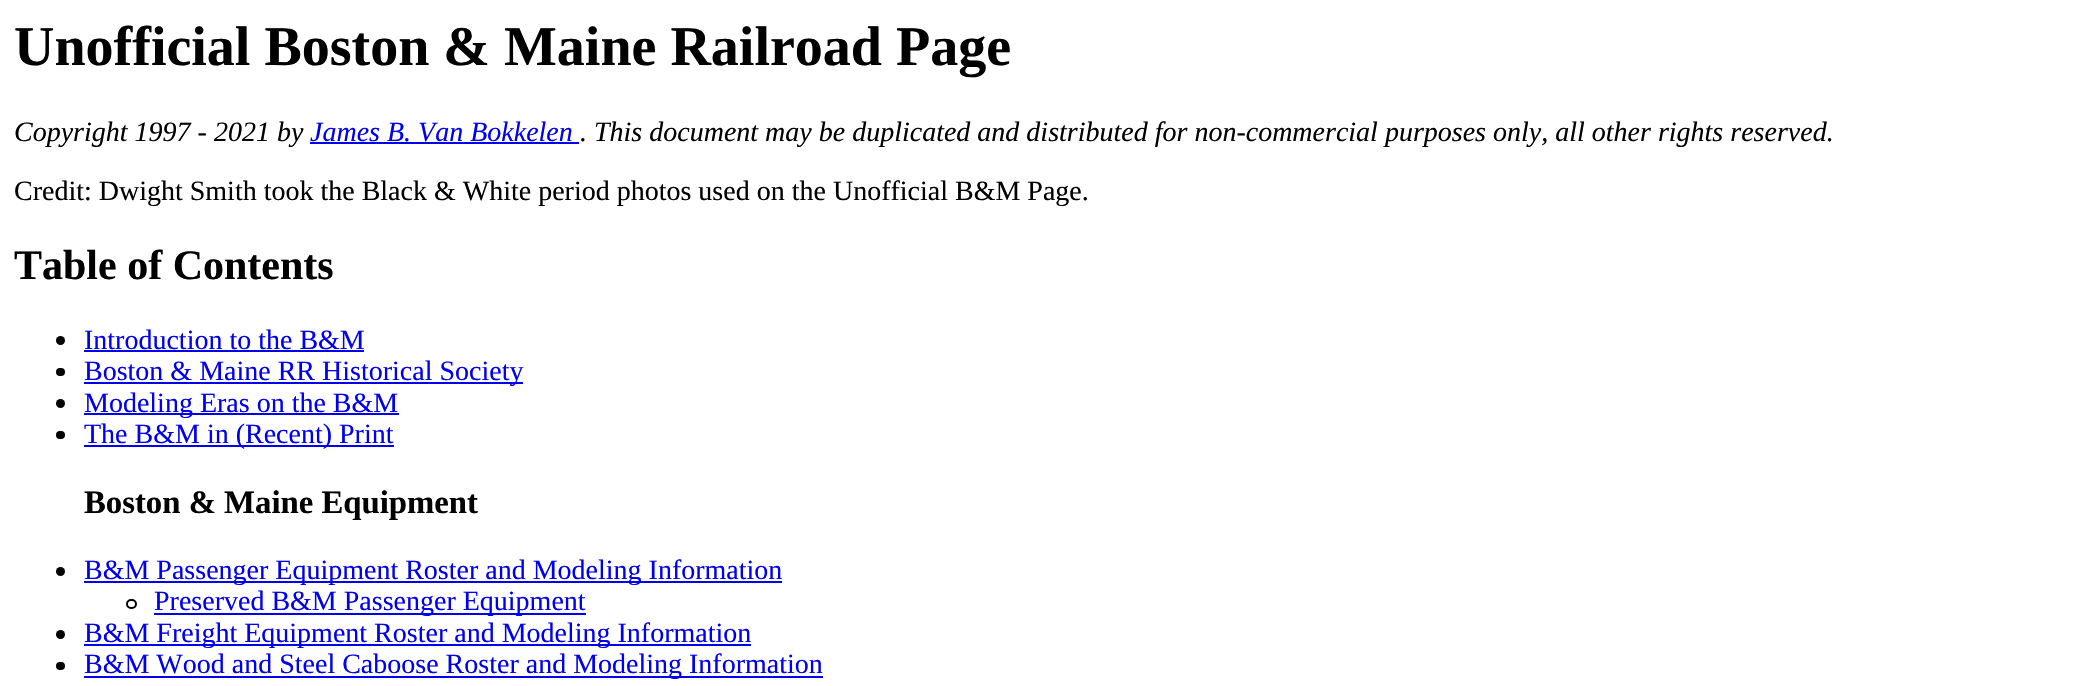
void draw(SkCanvas* canvas) {
    SkPaint paint;
    paint.setAntiAlias(true);
    canvas->clear(0xFFFFFFFF);
    SkFont font1(fontMgr->matchFamilyStyle("Liberation Serif", SkFontStyle::Bold()), 56);
    font1.setSubpixel(true);
    paint.setColor(0xFF000000);
    canvas->drawString("Unofficial Boston & Maine Railroad Page", 14, 65, font1, paint);
    SkFont font2(fontMgr->matchFamilyStyle("Liberation Serif", SkFontStyle::Italic()), 28);
    font2.setSubpixel(true);
    canvas->drawString("Copyright 1997 - 2021 by", 14, 141, font2, paint);
    paint.setColor(0xFF0000EE);
    canvas->drawString("James B. Van Bokkelen", 310, 141, font2, paint);
    paint.setColor(0xFF000000);
    canvas->drawString(". This document may be duplicated and distributed for non-commercial purposes only, all other rights reserved.", 580, 141, font2, paint);
    paint.setColor(0xFF0000EE);
    canvas->drawRect(SkRect::MakeXYWH(310, 142, 269, 2), paint);
    SkFont font3(fontMgr->matchFamilyStyle("Liberation Serif", SkFontStyle::Normal()), 28);
    font3.setSubpixel(true);
    paint.setColor(0xFF000000);
    canvas->drawString("Credit: Dwight Smith took the Black & White period photos used on the Unofficial B&M Page.", 14, 200, font3, paint);
    SkFont font4(fontMgr->matchFamilyStyle("Liberation Serif", SkFontStyle::Bold()), 42);
    font4.setSubpixel(true);
    canvas->drawString("Table of Contents", 14, 279, font4, paint);
    canvas->drawCircle(60.5f, 340.5f, 4.5f, paint);
    paint.setColor(0xFF0000EE);
    canvas->drawString("Introduction to the B&M", 84, 349, font3, paint);
    canvas->drawRect(SkRect::MakeXYWH(84, 350, 280, 2), paint);
    paint.setColor(0xFF000000);
    canvas->drawRoundRect(SkRect::MakeXYWH(56, 368, 9, 8), 4, 4, paint);
    paint.setColor(0xFF0000EE);
    canvas->drawRect(SkRect::MakeXYWH(84, 382, 439, 2), paint);
    canvas->drawString("Boston & Maine RR Historical Society", 84, 380, font3, paint);
    paint.setColor(0xFF000000);
    canvas->drawCircle(60.5f, 403.5f, 4.5f, paint);
    paint.setColor(0xFF0000EE);
    canvas->drawRect(SkRect::MakeXYWH(84, 413, 315, 2), paint);
    canvas->drawString("Modeling Eras on the B&M", 84, 412, font3, paint);
    paint.setColor(0xFF000000);
    canvas->drawRoundRect(SkRect::MakeXYWH(56, 431, 9, 8), 4, 4, paint);
    paint.setColor(0xFF0000EE);
    canvas->drawRect(SkRect::MakeXYWH(84, 445, 310, 2), paint);
    canvas->drawString("The B&M in (Recent) Print", 84, 443, font3, paint);
    SkFont font5(fontMgr->matchFamilyStyle("Liberation Serif", SkFontStyle::Bold()), 32.75f);
    font5.setSubpixel(true);
    paint.setColor(0xFF000000);
    canvas->drawString("Boston & Maine Equipment", 84, 513, font5, paint);
    canvas->drawCircle(60.5f, 571.5f, 4.5f, paint);
    paint.setColor(0xFF0000EE);
    canvas->drawRect(SkRect::MakeXYWH(84, 581, 698, 2), paint);
    canvas->drawString("B&M Passenger Equipment Roster and Modeling Information", 84, 579, font3, paint);
    paint.setStyle(SkPaint::kStroke_Style);
    paint.setStrokeWidth(2);
    paint.setColor(0xFF000000);
    canvas->drawRoundRect(SkRect::MakeXYWH(127, 600, 9, 8), 4, 4, paint);
    paint.setStyle(SkPaint::kFill_Style);
    paint.setColor(0xFF0000EE);
    canvas->drawRect(SkRect::MakeXYWH(154, 613, 432, 2), paint);
    canvas->drawString("Preserved B&M Passenger Equipment", 154, 610, font3, paint);
    paint.setColor(0xFF000000);
    canvas->drawCircle(60.5f, 634.5f, 4.5f, paint);
    paint.setColor(0xFF0000EE);
    canvas->drawRect(SkRect::MakeXYWH(84, 644, 667, 2), paint);
    canvas->drawString("B&M Freight Equipment Roster and Modeling Information", 84, 642, font3, paint);
    paint.setColor(0xFF000000);
    canvas->drawRoundRect(SkRect::MakeXYWH(56, 662, 9, 8), 4, 4, paint);
    paint.setColor(0xFF0000EE);
    canvas->drawRect(SkRect::MakeXYWH(84, 676, 739, 2), paint);
    canvas->drawString("B&M Wood and Steel Caboose Roster and Modeling Information", 84, 673, font3, paint);
}
